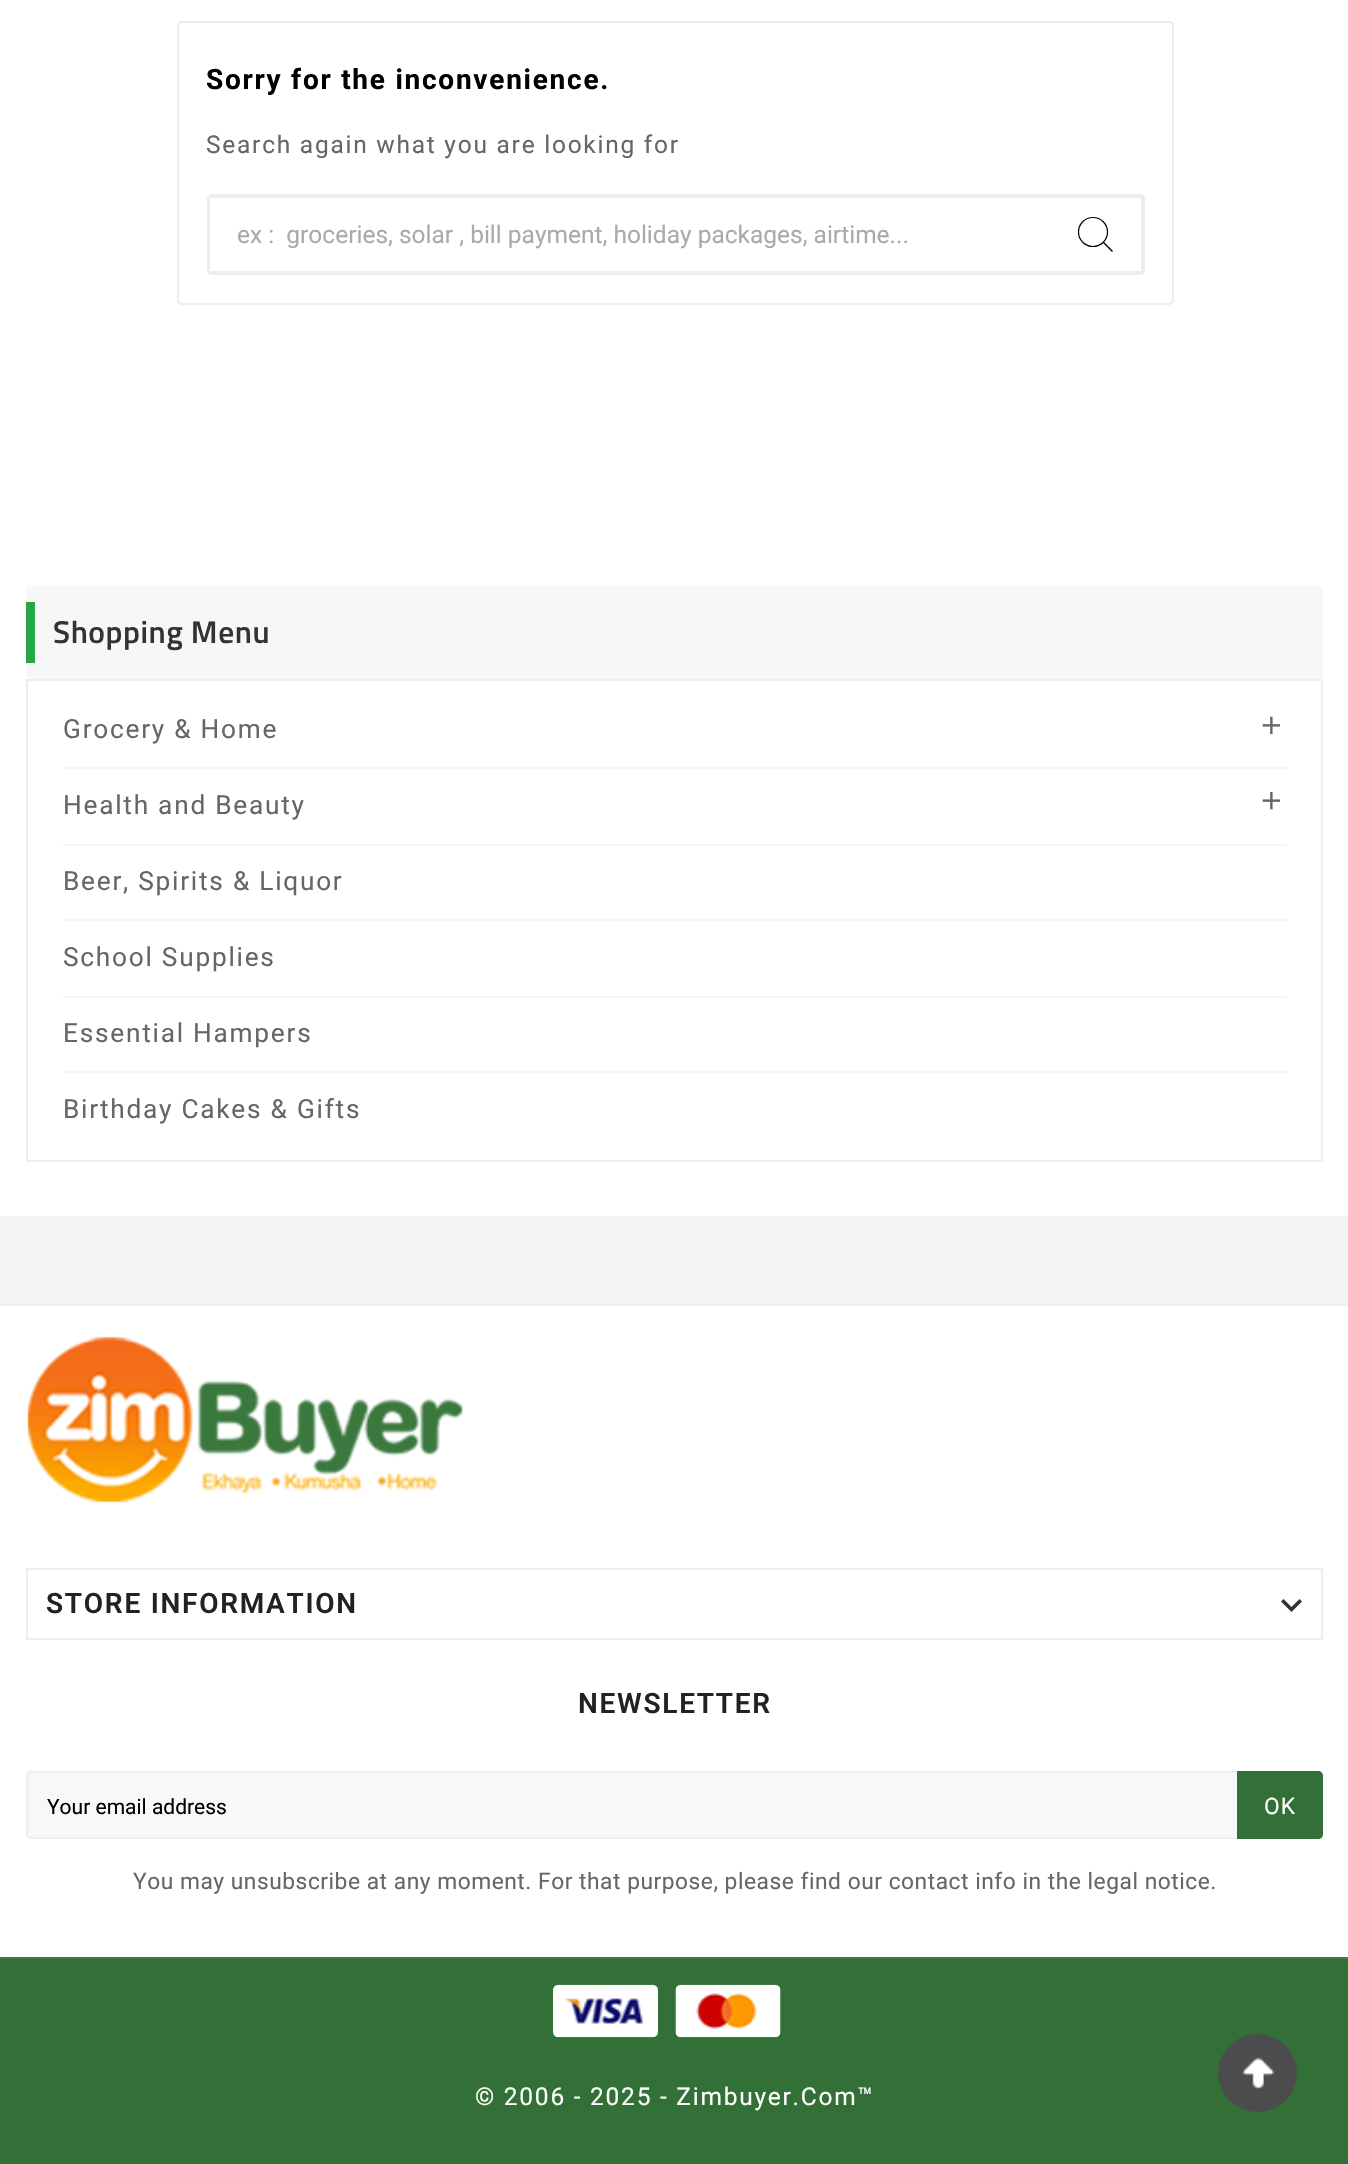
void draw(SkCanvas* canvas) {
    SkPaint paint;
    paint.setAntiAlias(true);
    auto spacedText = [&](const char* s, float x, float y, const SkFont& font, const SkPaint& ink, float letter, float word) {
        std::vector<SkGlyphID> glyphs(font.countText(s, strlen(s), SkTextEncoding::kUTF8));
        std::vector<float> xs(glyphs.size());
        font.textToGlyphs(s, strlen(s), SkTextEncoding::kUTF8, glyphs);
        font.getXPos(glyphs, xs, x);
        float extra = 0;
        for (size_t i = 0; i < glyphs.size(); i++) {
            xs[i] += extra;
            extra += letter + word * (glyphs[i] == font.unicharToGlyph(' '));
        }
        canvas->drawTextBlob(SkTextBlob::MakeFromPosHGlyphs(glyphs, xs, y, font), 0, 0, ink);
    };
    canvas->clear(0xFFF5F5F5);
    paint.setColor(0xFFFFFFFF);
    canvas->drawRect(SkRect::MakeXYWH(0, 0, 1348, 1216), paint);
    paint.setStyle(SkPaint::kStroke_Style);
    paint.setStrokeWidth(2);
    paint.setColor(0xFFEDEDED);
    canvas->drawRoundRect(SkRect::MakeXYWH(178, 22, 995, 282), 4, 4, paint);
    SkFont font1(fontMgr->matchFamilyStyle("Roboto", SkFontStyle::Bold()), 28);
    font1.setSubpixel(true);
    paint.setStyle(SkPaint::kFill_Style);
    paint.setColor(0xFF000000);
    spacedText("Sorry for the inconvenience.", 206, 89, font1, paint, 1.75f, 0);
    SkFont font2(fontMgr->matchFamilyStyle("Roboto", SkFontStyle::Normal()), 24.5f);
    font2.setSubpixel(true);
    paint.setColor(0xFF666666);
    spacedText("Search again what you are looking for", 206, 153, font2, paint, 1.75f, 0);
    paint.setStyle(SkPaint::kStroke_Style);
    paint.setStrokeWidth(4);
    paint.setColor(0xFFEDEDED);
    canvas->drawRoundRect(SkRect::MakeXYWH(209, 196, 934, 77), 3, 3, paint);
    paint.setStyle(SkPaint::kFill_Style);
    paint.setColor(0xFFFFFFFF);
    canvas->drawRect(SkRect::MakeXYWH(210, 198, 2, 73), paint);
    paint.setColor(0xFFAAAAAA);
    canvas->drawString("ex :  groceries, solar , bill payment, holiday packages, airtime...", 237, 243, font2, paint);
    paint.setColor(0xFFFFFFFF);
    canvas->drawRect(SkRect::MakeXYWH(1140, 198, 1, 73), paint);
    paint.setColor(0xFF000000);
    canvas->drawPath(SkPathBuilder().moveTo(1112, 252).lineTo(1103, 243).lineTo(1104, 242).lineTo(1113, 251).close().detach(), paint);
    paint.setStyle(SkPaint::kStroke_Style);
    paint.setStrokeWidth(1.2f);
    canvas->drawCircle(1093, 232, 14.5f, paint);
    paint.setStyle(SkPaint::kFill_Style);
    paint.setColor(0xFFF7F7F7);
    canvas->drawRoundRect(SkRect::MakeXYWH(26, 586, 1297, 93), 5, 5, paint);
    paint.setColor(0xFF28A745);
    canvas->drawRect(SkRect::MakeXYWH(26, 602, 9, 61), paint);
    SkFont font3(fontMgr->matchFamilyStyle("Titillium Web", SkFontStyle(600, SkFontStyle::kNormal_Width, SkFontStyle::kUpright_Slant)), 31.5f);
    font3.setSubpixel(true);
    paint.setColor(0xFF333333);
    spacedText("Shopping Menu", 53, 643, font3, paint, 0.53f, 0);
    paint.setStyle(SkPaint::kStroke_Style);
    paint.setStrokeWidth(2);
    paint.setColor(0xFFEEEEEE);
    canvas->drawRect(SkRect::MakeXYWH(27, 680, 1295, 481), paint);
    paint.setStyle(SkPaint::kFill_Style);
    paint.setColor(0xFFF5F5F5);
    canvas->drawRect(SkRect::MakeXYWH(63, 767, 1223, 2), paint);
    SkFont font4(fontMgr->matchFamilyStyle("Roboto", SkFontStyle::Normal()), 26.25f);
    font4.setSubpixel(true);
    paint.setColor(0xFF666666);
    spacedText("Grocery & Home", 63, 738, font4, paint, 1.75f, 0);
    canvas->drawImageRect(SkImages::DeferredFromEncodedData(SkData::MakeFromFileName("img1.png")), SkRect::MakeXYWH(1262, 716, 19, 19), SkSamplingOptions());
    paint.setColor(0xFFF5F5F5);
    canvas->drawRect(SkRect::MakeXYWH(63, 844, 1223, 2), paint);
    paint.setColor(0xFF666666);
    spacedText("Health and Beauty", 63, 814, font4, paint, 1.75f, 0);
    canvas->drawImageRect(SkImages::DeferredFromEncodedData(SkData::MakeFromFileName("img2.png")), SkRect::MakeXYWH(1262, 791, 19, 19), SkSamplingOptions());
    paint.setColor(0xFFF5F5F5);
    canvas->drawRect(SkRect::MakeXYWH(63, 919, 1223, 2), paint);
    paint.setColor(0xFF666666);
    spacedText("Beer, Spirits & Liquor", 63, 890, font4, paint, 1.75f, 0);
    paint.setColor(0xFFF5F5F5);
    canvas->drawRect(SkRect::MakeXYWH(63, 996, 1223, 2), paint);
    paint.setColor(0xFF666666);
    spacedText("School Supplies", 63, 966, font4, paint, 1.75f, 0);
    paint.setColor(0xFFF5F5F5);
    canvas->drawRect(SkRect::MakeXYWH(63, 1071, 1223, 2), paint);
    paint.setColor(0xFF666666);
    spacedText("Essential Hampers", 63, 1042, font4, paint, 1.75f, 0);
    spacedText("Birthday Cakes & Gifts", 63, 1118, font4, paint, 1.75f, 0);
    paint.setColor(0xFFFFFFFF);
    canvas->drawRect(SkRect::MakeXYWH(0, 1306, 1348, 651), paint);
    paint.setColor(0xFFEDEDED);
    canvas->drawRect(SkRect::MakeXYWH(0, 1304, 1348, 2), paint);
    canvas->drawImageRect(SkImages::DeferredFromEncodedData(SkData::MakeFromFileName("img3.png")), SkRect::MakeXYWH(27, 1336, 436, 167), SkSamplingOptions());
    paint.setStyle(SkPaint::kStroke_Style);
    canvas->drawRect(SkRect::MakeXYWH(27, 1569, 1295, 70), paint);
    SkFont font5(fontMgr->matchFamilyStyle("Roboto", SkFontStyle(600, SkFontStyle::kNormal_Width, SkFontStyle::kUpright_Slant)), 28);
    font5.setSubpixel(true);
    paint.setStyle(SkPaint::kFill_Style);
    paint.setColor(0xFF222222);
    spacedText("STORE INFORMATION", 46, 1613, font5, paint, 1.75f, 0);
    paint.setColor(0xFF333333);
    canvas->drawPath(SkPathBuilder().moveTo(1283.5f, 1599).lineTo(1291.5f, 1607).lineTo(1299.5f, 1599).lineTo(1302, 1601.5f).lineTo(1291.5f, 1612).lineTo(1281, 1601.5f).close().detach(), paint);
    paint.setColor(0xFF222222);
    spacedText("NEWSLETTER", 578, 1713, font5, paint, 1.75f, 0);
    paint.setColor(0xFFF7F8FA);
    canvas->drawRoundRect(SkRect::MakeXYWH(27, 1772, 1295, 66), 4, 4, paint);
    paint.setStyle(SkPaint::kStroke_Style);
    paint.setColor(0xFFEEEEEE);
    canvas->drawRoundRect(SkRect::MakeXYWH(27, 1772, 1295, 66), 4, 4, paint);
    SkFont font6(fontMgr->matchFamilyStyle("Roboto", SkFontStyle::Normal()), 21);
    font6.setSubpixel(true);
    paint.setStyle(SkPaint::kFill_Style);
    paint.setColor(0xFF000000);
    canvas->drawString("Your email address", 47, 1814, font6, paint);
    paint.setColor(0xFF337037);
    canvas->drawPath(SkPathBuilder().moveTo(1237, 1771).lineTo(1318, 1771).cubicTo(1321, 1771, 1323, 1773, 1323, 1776).lineTo(1323, 1834).cubicTo(1323, 1837, 1321, 1839, 1318, 1839).lineTo(1237, 1839).close().detach(), paint);
    SkFont font7(fontMgr->matchFamilyStyle("Roboto", SkFontStyle::Normal()), 22.75f);
    font7.setSubpixel(true);
    paint.setColor(0xFFFFFFFF);
    spacedText("OK", 1264, 1814, font7, paint, 1, 0);
    paint.setColor(0xFF666666);
    spacedText("You may unsubscribe at any moment. For that purpose, please find our contact info in the legal notice.", 133, 1889, font7, paint, 0.53f, 0);
    paint.setColor(0xFF337037);
    canvas->drawRect(SkRect::MakeXYWH(0, 1959, 1348, 205), paint);
    paint.setColor(0xFF4C4C4C);
    canvas->drawRoundRect(SkRect::MakeXYWH(1218, 2034, 79, 78), 39, 39, paint);
    canvas->drawImageRect(SkImages::DeferredFromEncodedData(SkData::MakeFromFileName("img4.png")), SkRect::MakeXYWH(1242, 2057, 33, 32), SkSamplingOptions());
    paint.setColor(0xFF417A45);
    canvas->drawRect(SkRect::MakeXYWH(0, 1957, 1348, 2), paint);
    canvas->drawImageRect(SkImages::DeferredFromEncodedData(SkData::MakeFromFileName("img5.png")), SkRect::MakeXYWH(553, 1984, 105, 54), SkSamplingOptions());
    canvas->drawImageRect(SkImages::DeferredFromEncodedData(SkData::MakeFromFileName("img6.png")), SkRect::MakeXYWH(675, 1984, 106, 54), SkSamplingOptions());
    paint.setColor(0xFFFFFFFF);
    spacedText("© 2006 - 2025 - Zimbuyer.Com™", 475, 2105, font2, paint, 1.75f, 0);
}
